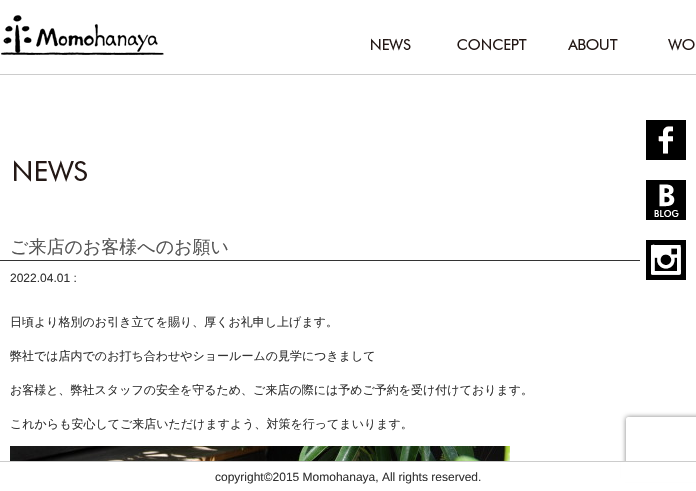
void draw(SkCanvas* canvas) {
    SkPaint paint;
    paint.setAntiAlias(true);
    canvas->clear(0xFFFFFFFF);
    paint.setColor(0xFFCCCCCC);
    canvas->drawRect(SkRect::MakeXYWH(0, 74, 696, 1), paint);
    canvas->drawImageRect(SkImages::DeferredFromEncodedData(SkData::MakeFromFileName("img1.png")), SkRect::MakeXYWH(1, 15, 163, 40), SkSamplingOptions());
    canvas->drawImageRect(SkImages::DeferredFromEncodedData(SkData::MakeFromFileName("img2.png")), SkRect::MakeXYWH(371, 38, 40, 13), SkSamplingOptions());
    canvas->drawImageRect(SkImages::DeferredFromEncodedData(SkData::MakeFromFileName("img3.png")), SkRect::MakeXYWH(457, 38, 70, 13), SkSamplingOptions());
    canvas->drawImageRect(SkImages::DeferredFromEncodedData(SkData::MakeFromFileName("img4.png")), SkRect::MakeXYWH(568, 39, 50, 11), SkSamplingOptions());
    canvas->drawImageRect(SkImages::DeferredFromEncodedData(SkData::MakeFromFileName("img5.png")), SkRect::MakeXYWH(668, 38, 27, 13), SkSamplingOptions());
    canvas->drawImageRect(SkImages::DeferredFromEncodedData(SkData::MakeFromFileName("img6.png")), SkRect::MakeXYWH(646, 120, 40, 40), SkSamplingOptions());
    canvas->drawImageRect(SkImages::DeferredFromEncodedData(SkData::MakeFromFileName("img7.png")), SkRect::MakeXYWH(646, 180, 40, 40), SkSamplingOptions());
    canvas->drawImageRect(SkImages::DeferredFromEncodedData(SkData::MakeFromFileName("img8.png")), SkRect::MakeXYWH(646, 240, 40, 40), SkSamplingOptions());
    canvas->drawImageRect(SkImages::DeferredFromEncodedData(SkData::MakeFromFileName("img9.png")), SkRect::MakeXYWH(14, 160, 73, 22), SkSamplingOptions());
    paint.setColor(0xFF333333);
    canvas->drawRect(SkRect::MakeXYWH(0, 260, 640, 1), paint);
    SkFont font1(fontMgr->matchFamilyStyle("WenQuanYi Zen Hei", SkFontStyle(500, SkFontStyle::kNormal_Width, SkFontStyle::kUpright_Slant)), 18);
    font1.setSubpixel(true);
    paint.setColor(0xFF555555);
    canvas->drawString("ご来店のお客様へのお願い", 10, 253, font1, paint);
    SkFont font2(fontMgr->matchFamilyStyle("Liberation Sans", SkFontStyle::Normal()), 12);
    font2.setSubpixel(true);
    paint.setColor(0xFF333333);
    canvas->drawString("2022.04.01 :", 10, 282, font2, paint);
    SkFont font3(fontMgr->matchFamilyStyle("WenQuanYi Zen Hei", SkFontStyle(500, SkFontStyle::kNormal_Width, SkFontStyle::kUpright_Slant)), 12);
    font3.setSubpixel(true);
    canvas->drawString("日頃より格別のお引き立てを賜り、厚くお礼申し上げます。", 10, 326, font3, paint);
    canvas->drawString("弊社では店内でのお打ち合わせやショールームの見学につきまして", 10, 360, font3, paint);
    canvas->drawString("お客様と、弊社スタッフの安全を守るため、ご来店の際には予めご予約を受け付けております。", 10, 394, font3, paint);
    canvas->drawString("これからも安心してご来店いただけますよう、対策を行ってまいります。", 10, 428, font3, paint);
    canvas->drawImageRect(SkImages::DeferredFromEncodedData(SkData::MakeFromFileName("img10.png")), SkRect::MakeXYWH(10, 446, 500, 15), SkSamplingOptions());
    canvas->save();
    canvas->clipPath(SkPathBuilder(SkPathFillType::kEvenOdd).moveTo(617, 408).lineTo(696, 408).lineTo(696, 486).lineTo(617, 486).close().moveTo(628, 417).lineTo(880, 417).cubicTo(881, 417, 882, 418, 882, 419).lineTo(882, 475).cubicTo(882, 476, 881, 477, 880, 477).lineTo(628, 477).cubicTo(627, 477, 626, 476, 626, 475).lineTo(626, 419).cubicTo(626, 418, 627, 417, 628, 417).close().detach(), true);
    paint.setColor(0xFF808080);
    paint.setMaskFilter(SkMaskFilter::MakeBlur(kNormal_SkBlurStyle, 2.5f));
    canvas->drawRoundRect(SkRect::MakeXYWH(626, 417, 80, 60), 2, 2, paint);
    paint.setMaskFilter(nullptr);
    canvas->restore();
    paint.setColor(0xFFFFFFFF);
    canvas->drawRect(SkRect::MakeXYWH(621, 462, 75, 20), paint);
    paint.setColor(0xFFCCCCCC);
    canvas->drawRect(SkRect::MakeXYWH(0, 461, 696, 1), paint);
    paint.setColor(0xFF333333);
    canvas->drawString("copyright©2015 Momohanaya, All rights reserved.", 215, 481, font2, paint);
}
